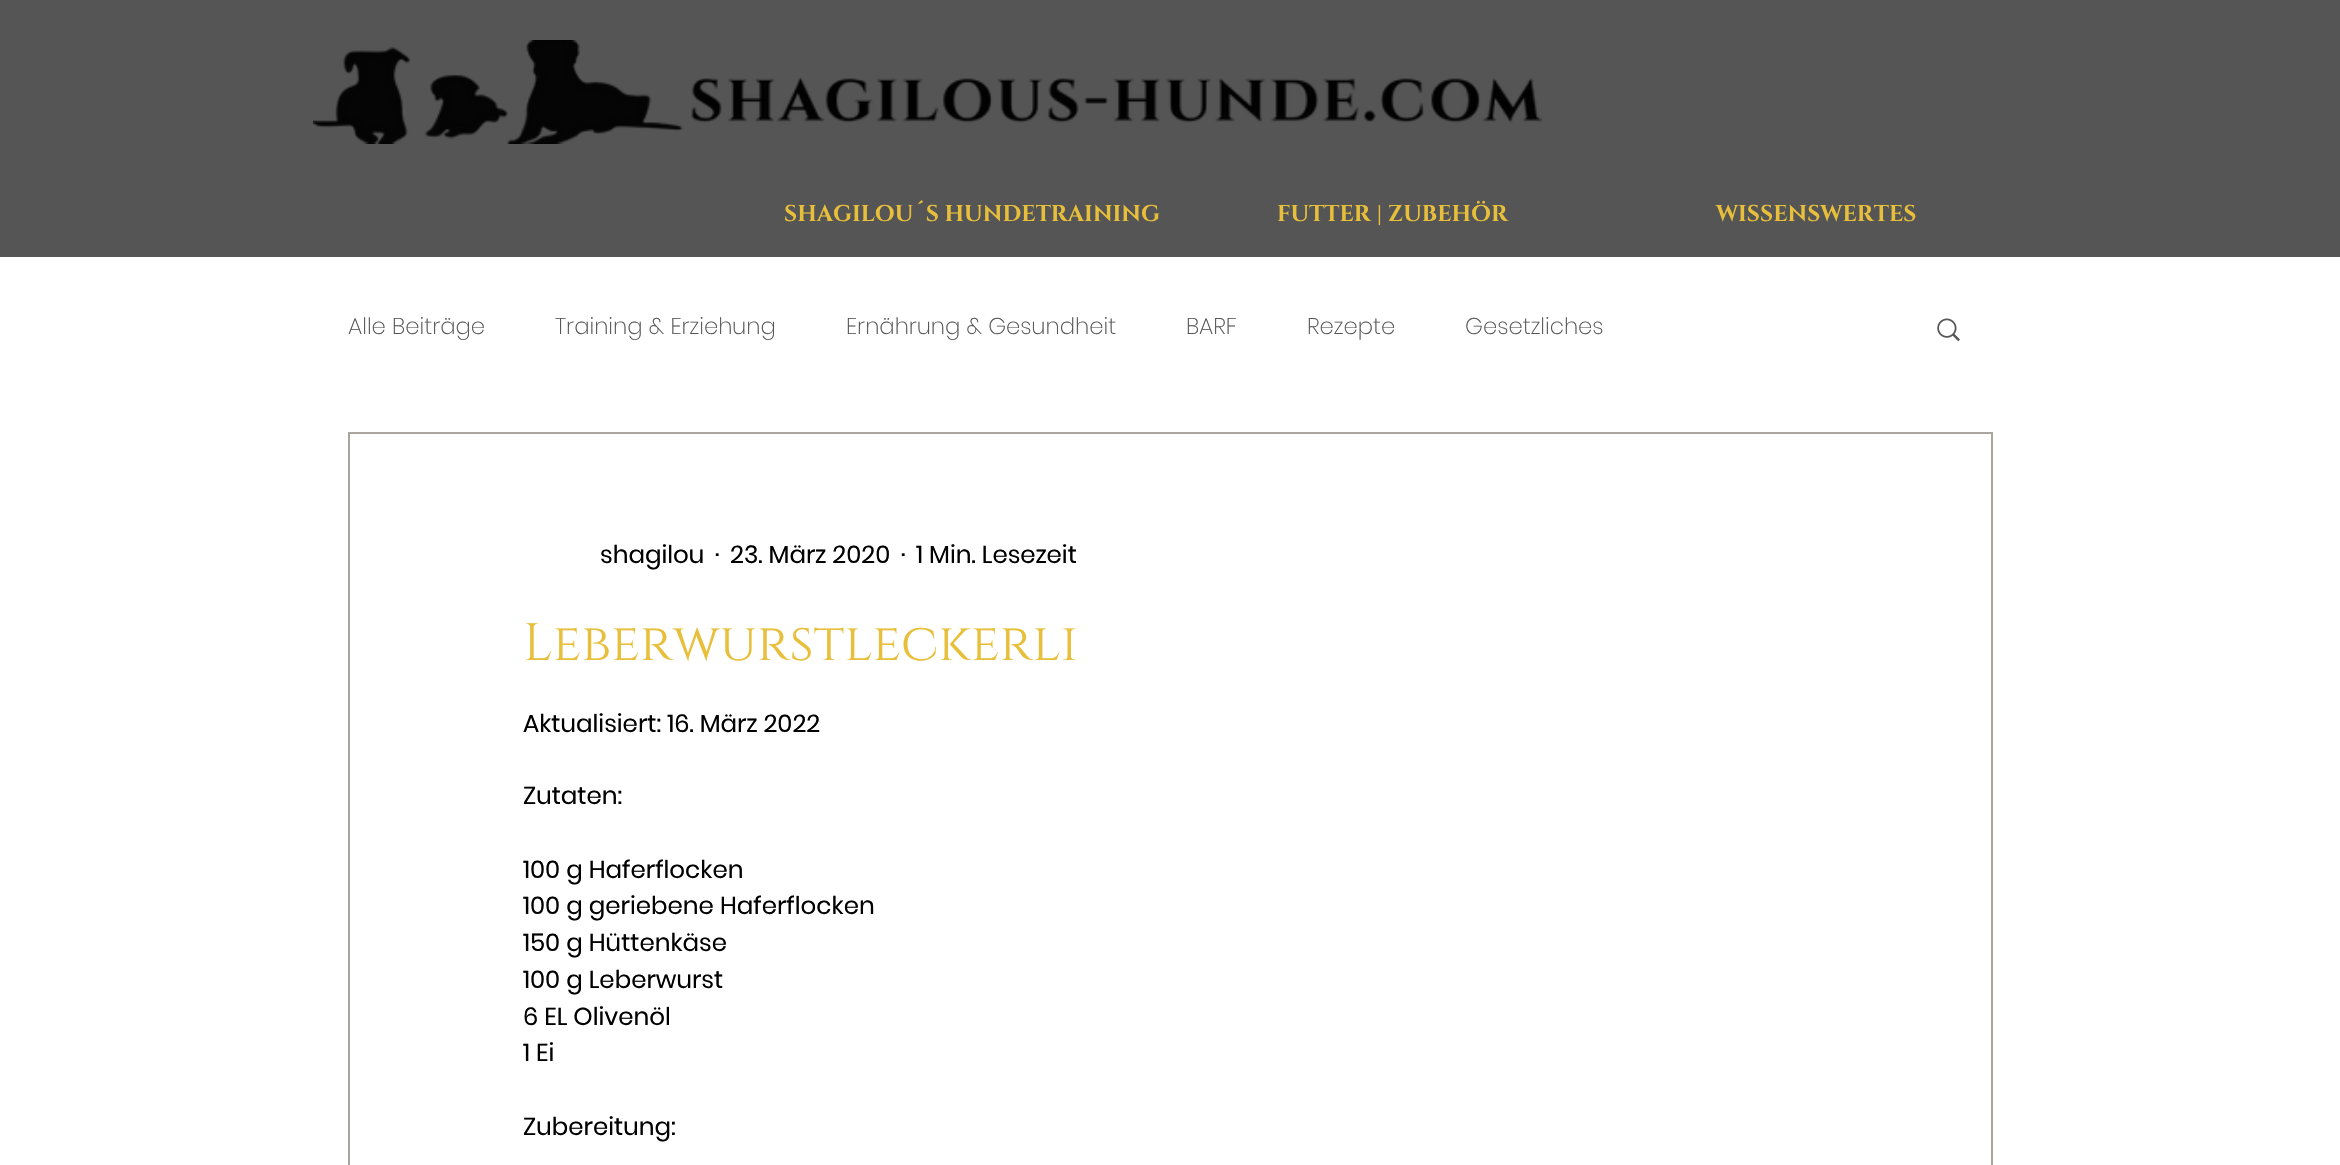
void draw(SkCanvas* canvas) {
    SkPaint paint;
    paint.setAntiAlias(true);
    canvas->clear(0xFFFFFFFF);
    paint.setColor(0xFF555555);
    canvas->drawRect(SkRect::MakeXYWH(0, 0, 2340, 257), paint);
    canvas->drawImageRect(SkImages::DeferredFromEncodedData(SkData::MakeFromFileName("img1.png")), SkRect::MakeXYWH(313, 40, 1229, 104), SkSamplingOptions());
    SkFont font1(fontMgr->matchFamilyStyle("Cinzel", SkFontStyle::Bold()), 22.75f);
    font1.setSubpixel(true);
    paint.setColor(0xFFE8BF3A);
    canvas->drawString("SHAGILOU´S HUNDETRAINING", 784, 221, font1, paint);
    canvas->drawString("FUTTER | ZUBEHÖR", 1277, 221, font1, paint);
    canvas->drawString("WISSENSWERTES", 1716, 221, font1, paint);
    SkFont font2(fontMgr->matchFamilyStyle("Poppins", SkFontStyle(200, SkFontStyle::kNormal_Width, SkFontStyle::kUpright_Slant)), 22.75f);
    font2.setSubpixel(true);
    paint.setColor(0xFF555555);
    canvas->drawString("Alle Beiträge", 348, 334, font2, paint);
    canvas->drawString("Training & Erziehung", 555, 334, font2, paint);
    canvas->drawString("Ernährung & Gesundheit", 846, 334, font2, paint);
    canvas->drawString("BARF", 1186, 334, font2, paint);
    canvas->drawString("Rezepte", 1307, 334, font2, paint);
    canvas->drawString("Gesetzliches", 1465, 334, font2, paint);
    canvas->drawImageRect(SkImages::DeferredFromEncodedData(SkData::MakeFromFileName("img2.png")), SkRect::MakeXYWH(1937, 318, 23, 24), SkSamplingOptions());
    paint.setStyle(SkPaint::kStroke_Style);
    paint.setStrokeWidth(2);
    paint.setColor(0xFFAAA59E);
    canvas->drawRect(SkRect::MakeXYWH(349, 433, 1643, 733), paint);
    SkFont font3(fontMgr->matchFamilyStyle("Poppins", SkFontStyle::Normal()), 24.5f);
    font3.setSubpixel(true);
    paint.setStyle(SkPaint::kFill_Style);
    paint.setColor(0xFF000000);
    canvas->drawString("shagilou", 600, 563, font3, paint);
    canvas->drawString("·", 715, 563, font3, paint);
    canvas->drawString("23. März 2020", 730, 563, font3, paint);
    canvas->drawString("·", 901, 563, font3, paint);
    canvas->drawString("1 Min. Lesezeit", 916, 563, font3, paint);
    SkFont font4(fontMgr->matchFamilyStyle("Cinzel", SkFontStyle::Normal()), 52.5f);
    font4.setSubpixel(true);
    paint.setColor(0xFFE8BF3A);
    canvas->drawString("Leberwurstleckerli", 523, 660, font4, paint);
    paint.setColor(0xFF000000);
    canvas->drawString("Aktualisiert: 16. März 2022", 523, 732, font3, paint);
    canvas->drawString("Zutaten:", 523, 804, font3, paint);
    canvas->drawString("100 g Haferflocken", 523, 878, font3, paint);
    canvas->drawString("100 g geriebene Haferflocken", 523, 914, font3, paint);
    canvas->drawString("150 g Hüttenkäse", 523, 951, font3, paint);
    canvas->drawString("100 g Leberwurst", 523, 988, font3, paint);
    canvas->drawString("6 EL Olivenöl", 523, 1025, font3, paint);
    canvas->drawString("1 Ei", 523, 1061, font3, paint);
    canvas->drawString("Zubereitung:", 523, 1135, font3, paint);
}
